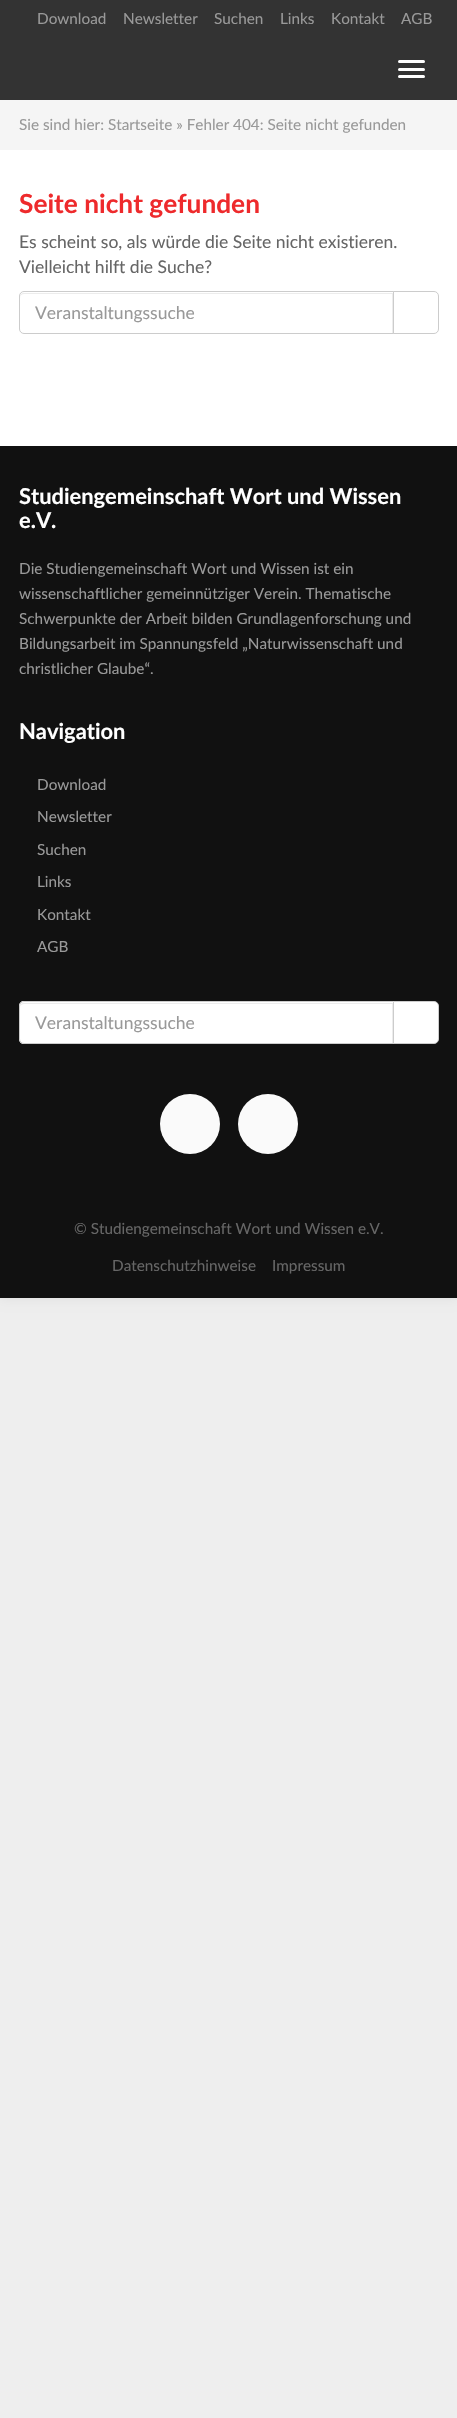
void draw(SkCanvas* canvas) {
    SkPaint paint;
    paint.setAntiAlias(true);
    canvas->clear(0xFFEEEEEE);
    paint.setColor(0xFFDDDDDD);
    paint.setMaskFilter(SkMaskFilter::MakeBlur(kNormal_SkBlurStyle, 6));
    canvas->drawRect(SkRect::MakeXYWH(0, 0, 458, 1298), paint);
    paint.setMaskFilter(nullptr);
    paint.setColor(0xFFFFFFFF);
    canvas->drawRect(SkRect::MakeXYWH(0, 150, 457, 296), paint);
    paint.setColor(0xFF333333);
    canvas->drawRect(SkRect::MakeXYWH(0, 0, 457, 100), paint);
    SkFont font1(fontMgr->matchFamilyStyle("Lato", SkFontStyle::Normal()), 15.3f);
    font1.setSubpixel(true);
    paint.setColor(0xFF999999);
    canvas->drawString("Download", 37, 24, font1, paint);
    canvas->drawString("Newsletter", 123, 24, font1, paint);
    canvas->drawString("Suchen", 214, 24, font1, paint);
    canvas->drawString("Links", 280, 24, font1, paint);
    canvas->drawString("Kontakt", 331, 24, font1, paint);
    canvas->drawString("AGB", 401, 24, font1, paint);
    paint.setColor(0xFFFFFFFF);
    canvas->drawRoundRect(SkRect::MakeXYWH(398, 60, 27, 3), 1.5f, 1.5f, paint);
    canvas->drawRoundRect(SkRect::MakeXYWH(398, 68, 27, 3), 1.5f, 1.5f, paint);
    canvas->drawRoundRect(SkRect::MakeXYWH(398, 75, 27, 3), 1.5f, 1.5f, paint);
    paint.setColor(0xFFF5F5F5);
    canvas->drawRect(SkRect::MakeXYWH(0, 100, 457, 50), paint);
    paint.setColor(0xFF999999);
    canvas->drawString("Sie sind hier: Startseite » Fehler 404: Seite nicht gefunden", 19, 130, font1, paint);
    SkFont font2(fontMgr->matchFamilyStyle("Lato", SkFontStyle::Bold()), 26.25f);
    font2.setSubpixel(true);
    paint.setColor(0xFFEE2A2C);
    canvas->drawString("Seite nicht gefunden", 19, 213, font2, paint);
    SkFont font3(fontMgr->matchFamilyStyle("Lato", SkFontStyle::Normal()), 17.5f);
    font3.setSubpixel(true);
    paint.setColor(0xFF666666);
    canvas->drawString("Es scheint so, als würde die Seite nicht existieren.", 19, 248, font3, paint);
    canvas->drawString("Vielleicht hilft die Suche?", 19, 273, font3, paint);
    paint.setColor(0xFFECECEC);
    canvas->drawPath(SkPathBuilder().moveTo(24, 294).lineTo(392, 294).lineTo(392, 333).lineTo(393, 333).lineTo(393, 293).lineTo(24, 293).cubicTo(21, 293, 20, 295, 20, 298).cubicTo(20, 295, 22, 294, 24, 294).close().detach(), paint);
    paint.setStyle(SkPaint::kStroke_Style);
    paint.setStrokeWidth(1);
    paint.setColor(0xFFCCCCCC);
    canvas->drawPath(SkPathBuilder().moveTo(24, 291.5f).lineTo(393.5f, 291.5f).lineTo(393.5f, 333.5f).lineTo(24, 333.5f).cubicTo(21.5f, 333.5f, 19.5f, 331.5f, 19.5f, 329).lineTo(19.5f, 296).cubicTo(19.5f, 293.5f, 21.5f, 291.5f, 24, 291.5f).close().detach(), paint);
    paint.setStyle(SkPaint::kFill_Style);
    paint.setColor(0xFF999999);
    canvas->drawString("Veranstaltungssuche", 35, 319, font3, paint);
    paint.setColor(0xFFFFFFFF);
    canvas->drawPath(SkPathBuilder().moveTo(393.5f, 291.5f).lineTo(434, 291.5f).cubicTo(436.5f, 291.5f, 438.5f, 293.5f, 438.5f, 296).lineTo(438.5f, 329).cubicTo(438.5f, 331.5f, 436.5f, 333.5f, 434, 333.5f).lineTo(393.5f, 333.5f).close().detach(), paint);
    paint.setStyle(SkPaint::kStroke_Style);
    paint.setColor(0xFFCCCCCC);
    canvas->drawPath(SkPathBuilder().moveTo(393.5f, 291.5f).lineTo(434, 291.5f).cubicTo(436.5f, 291.5f, 438.5f, 293.5f, 438.5f, 296).lineTo(438.5f, 329).cubicTo(438.5f, 331.5f, 436.5f, 333.5f, 434, 333.5f).lineTo(393.5f, 333.5f).close().detach(), paint);
    paint.setStyle(SkPaint::kFill_Style);
    paint.setColor(0xFF111111);
    canvas->drawRect(SkRect::MakeXYWH(0, 446, 457, 852), paint);
    SkFont font4(fontMgr->matchFamilyStyle("Lato", SkFontStyle::Bold()), 21.9f);
    font4.setSubpixel(true);
    paint.setColor(0xFFFFFFFF);
    canvas->drawString("Studiengemeinschaft Wort und Wissen", 19, 504, font4, paint);
    canvas->drawString("e.V.", 19, 528, font4, paint);
    paint.setColor(0xFF999999);
    canvas->drawString("Die Studiengemeinschaft Wort und Wissen ist ein", 19, 574, font1, paint);
    canvas->drawString("wissenschaftlicher gemeinnütziger Verein. Thematische", 19, 599, font1, paint);
    canvas->drawString("Schwerpunkte der Arbeit bilden Grundlagenforschung und", 19, 624, font1, paint);
    canvas->drawString("Bildungsarbeit im Spannungsfeld „Naturwissenschaft und", 19, 649, font1, paint);
    canvas->drawString("christlicher Glaube“.", 19, 674, font1, paint);
    paint.setColor(0xFFFFFFFF);
    canvas->drawString("Navigation", 19, 739, font4, paint);
    paint.setColor(0xFF999999);
    canvas->drawString("Download", 37, 790, font1, paint);
    canvas->drawString("Newsletter", 37, 822, font1, paint);
    canvas->drawString("Suchen", 37, 855, font1, paint);
    canvas->drawString("Links", 37, 887, font1, paint);
    canvas->drawString("Kontakt", 37, 920, font1, paint);
    canvas->drawString("AGB", 37, 952, font1, paint);
    paint.setColor(0xFFFFFFFF);
    canvas->drawPath(SkPathBuilder().moveTo(24, 1001).lineTo(394, 1001).lineTo(394, 1044).lineTo(24, 1044).cubicTo(21, 1044, 19, 1042, 19, 1039).lineTo(19, 1006).cubicTo(19, 1003, 21, 1001, 24, 1001).close().detach(), paint);
    paint.setColor(0xFFECECEC);
    canvas->drawPath(SkPathBuilder().moveTo(24, 1004).lineTo(392, 1004).lineTo(392, 1043).lineTo(393, 1043).lineTo(393, 1003).lineTo(24, 1003).cubicTo(21, 1003, 20, 1005, 20, 1008).cubicTo(20, 1005, 22, 1004, 24, 1004).close().detach(), paint);
    paint.setStyle(SkPaint::kStroke_Style);
    paint.setColor(0xFFCCCCCC);
    canvas->drawPath(SkPathBuilder().moveTo(24, 1001.5f).lineTo(393.5f, 1001.5f).lineTo(393.5f, 1043.5f).lineTo(24, 1043.5f).cubicTo(21.5f, 1043.5f, 19.5f, 1041.5f, 19.5f, 1039).lineTo(19.5f, 1006).cubicTo(19.5f, 1003.5f, 21.5f, 1001.5f, 24, 1001.5f).close().detach(), paint);
    paint.setStyle(SkPaint::kFill_Style);
    paint.setColor(0xFF999999);
    canvas->drawString("Veranstaltungssuche", 35, 1029, font3, paint);
    paint.setColor(0xFFFFFFFF);
    canvas->drawPath(SkPathBuilder().moveTo(393.5f, 1001.5f).lineTo(434, 1001.5f).cubicTo(436.5f, 1001.5f, 438.5f, 1003.5f, 438.5f, 1006).lineTo(438.5f, 1039).cubicTo(438.5f, 1041.5f, 436.5f, 1043.5f, 434, 1043.5f).lineTo(393.5f, 1043.5f).close().detach(), paint);
    paint.setStyle(SkPaint::kStroke_Style);
    paint.setColor(0xFFCCCCCC);
    canvas->drawPath(SkPathBuilder().moveTo(393.5f, 1001.5f).lineTo(434, 1001.5f).cubicTo(436.5f, 1001.5f, 438.5f, 1003.5f, 438.5f, 1006).lineTo(438.5f, 1039).cubicTo(438.5f, 1041.5f, 436.5f, 1043.5f, 434, 1043.5f).lineTo(393.5f, 1043.5f).close().detach(), paint);
    paint.setStyle(SkPaint::kFill_Style);
    paint.setColor(0xFFFAFAFA);
    canvas->drawCircle(190, 1124, 30, paint);
    canvas->drawCircle(268, 1124, 30, paint);
    paint.setColor(0xFF666666);
    canvas->drawString("© Studiengemeinschaft Wort und Wissen e.V.", 74, 1234, font1, paint);
    canvas->drawString("Datenschutzhinweise", 112, 1271, font1, paint);
    canvas->drawString("Impressum", 272, 1271, font1, paint);
}
